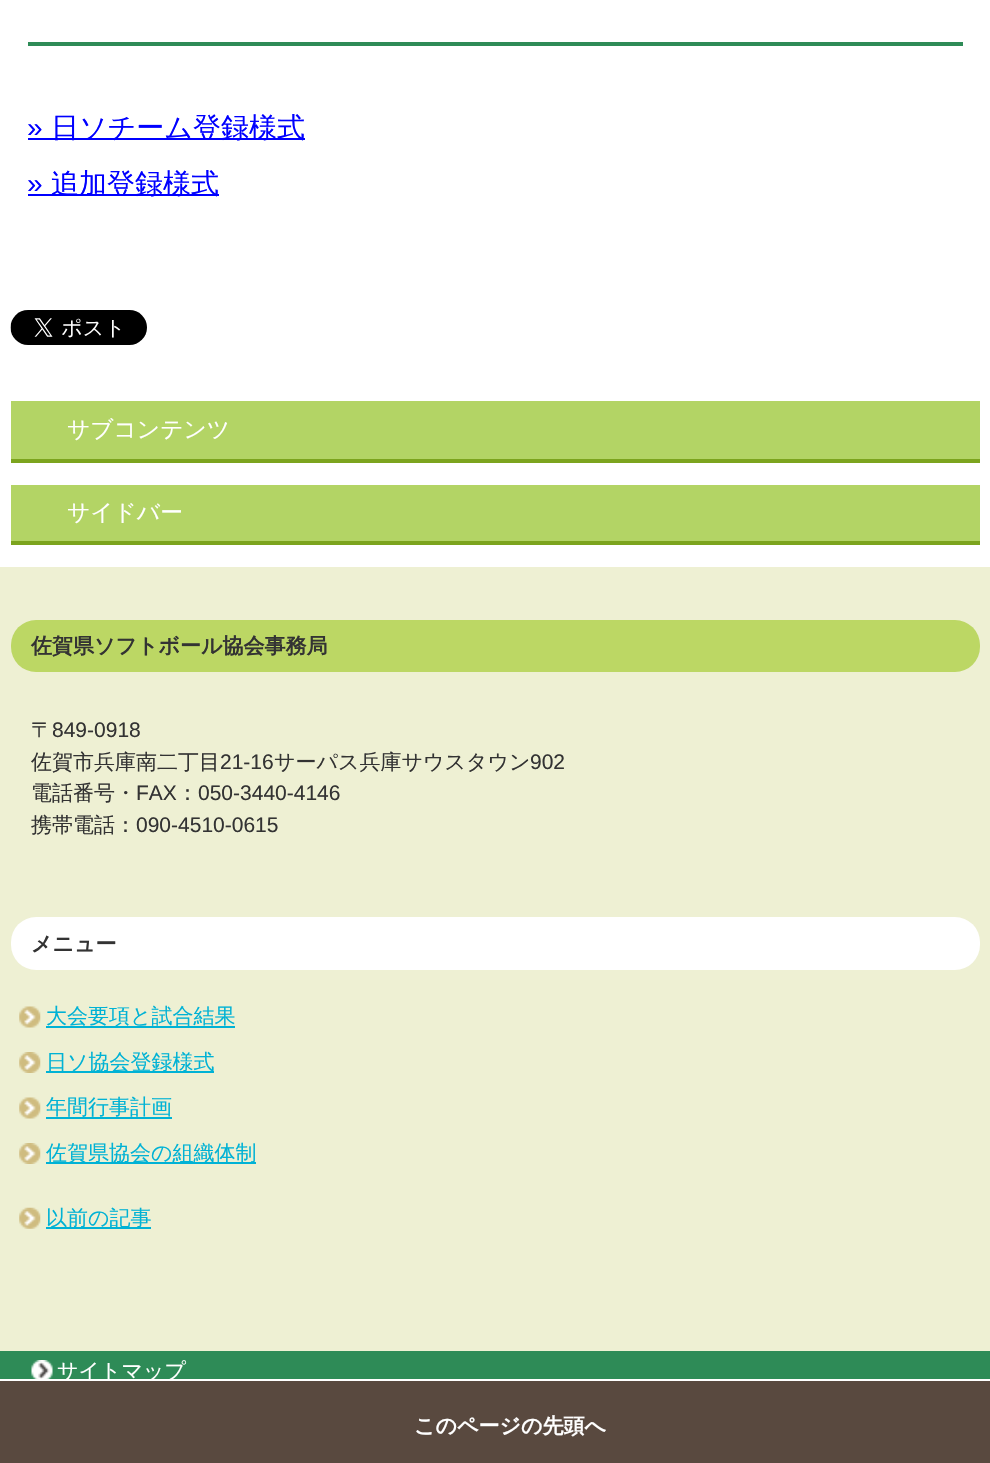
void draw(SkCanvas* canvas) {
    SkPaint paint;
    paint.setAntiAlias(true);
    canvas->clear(0xFFFFFFFF);
    paint.setColor(0xFF2E8B57);
    canvas->drawRect(SkRect::MakeXYWH(28, 42, 935, 4), paint);
    SkFont font1(fontMgr->matchFamilyStyle("Liberation Sans", SkFontStyle::Normal()), 28);
    font1.setSubpixel(true);
    paint.setColor(0xFF0000FF);
    canvas->drawString("»", 27, 137, font1, paint);
    canvas->drawRect(SkRect::MakeXYWH(28, 138, 277, 2), paint);
    SkFont font2(fontMgr->matchFamilyStyle("WenQuanYi Zen Hei", SkFontStyle(500, SkFontStyle::kNormal_Width, SkFontStyle::kUpright_Slant)), 28);
    font2.setSubpixel(true);
    canvas->drawString("日ソチーム登録様式", 51, 137, font2, paint);
    canvas->drawString("»", 27, 193, font1, paint);
    canvas->drawRect(SkRect::MakeXYWH(28, 194, 191, 2), paint);
    canvas->drawString("追加登録様式", 51, 193, font2, paint);
    canvas->drawImageRect(SkImages::DeferredFromEncodedData(SkData::MakeFromFileName("img1.png")), SkRect::MakeXYWH(10, 310, 137, 35), SkSamplingOptions());
    paint.setColor(0xFFB3D465);
    canvas->drawRect(SkRect::MakeXYWH(11, 401, 969, 58), paint);
    paint.setColor(0xFF7CA41E);
    canvas->drawRect(SkRect::MakeXYWH(11, 459, 969, 4), paint);
    SkFont font3(fontMgr->matchFamilyStyle("WenQuanYi Zen Hei", SkFontStyle(500, SkFontStyle::kNormal_Width, SkFontStyle::kUpright_Slant)), 22.75f);
    font3.setSubpixel(true);
    paint.setColor(0xFFFFFFFF);
    canvas->drawString("サブコンテンツ", 67, 437, font3, paint);
    paint.setColor(0xFFB3D465);
    canvas->drawRect(SkRect::MakeXYWH(11, 485, 969, 56), paint);
    paint.setColor(0xFF7CA41E);
    canvas->drawRect(SkRect::MakeXYWH(11, 541, 969, 4), paint);
    paint.setColor(0xFFFFFFFF);
    canvas->drawString("サイドバー", 67, 520, font3, paint);
    paint.setColor(0xFFEEF0D3);
    canvas->drawRect(SkRect::MakeXYWH(0, 567, 990, 784), paint);
    paint.setColor(0xFFBCD764);
    canvas->drawRoundRect(SkRect::MakeXYWH(11, 620, 969, 52), 25, 25, paint);
    SkFont font4(fontMgr->matchFamilyStyle("WenQuanYi Zen Hei", SkFontStyle::Bold()), 21);
    font4.setSubpixel(true);
    paint.setColor(0xFF333333);
    canvas->drawString("佐賀県ソフトボール協会事務局", 31, 653, font4, paint);
    SkFont font5(fontMgr->matchFamilyStyle("WenQuanYi Zen Hei", SkFontStyle(500, SkFontStyle::kNormal_Width, SkFontStyle::kUpright_Slant)), 21);
    font5.setSubpixel(true);
    canvas->drawString("〒", 31, 737, font5, paint);
    SkFont font6(fontMgr->matchFamilyStyle("Liberation Sans", SkFontStyle::Normal()), 21);
    font6.setSubpixel(true);
    canvas->drawString("849-0918", 52, 737, font6, paint);
    canvas->drawString("佐賀市兵庫南二丁目", 31, 769, font5, paint);
    canvas->drawString("21-16", 220, 769, font6, paint);
    canvas->drawString("サーパス兵庫サウスタウン", 274, 769, font5, paint);
    canvas->drawString("902", 530, 769, font6, paint);
    canvas->drawString("電話番号・", 31, 800, font5, paint);
    canvas->drawString("FAX", 136, 800, font6, paint);
    canvas->drawString("：", 177, 800, font5, paint);
    canvas->drawString("050-3440-4146", 198, 800, font6, paint);
    canvas->drawString("携帯電話：", 31, 832, font5, paint);
    canvas->drawString("090-4510-0615", 136, 832, font6, paint);
    paint.setColor(0xFFFFFFFF);
    canvas->drawRoundRect(SkRect::MakeXYWH(11, 917, 969, 53), 25, 25, paint);
    paint.setColor(0xFF333333);
    canvas->drawString("メニュー", 31, 951, font4, paint);
    canvas->drawImageRect(SkImages::DeferredFromEncodedData(SkData::MakeFromFileName("img2.png")), SkRect::MakeXYWH(19, 1006, 22, 22), SkSamplingOptions());
    paint.setColor(0xFF00B2D5);
    canvas->drawRect(SkRect::MakeXYWH(46, 1026, 189, 2), paint);
    canvas->drawString("大会要項と試合結果", 46, 1023, font5, paint);
    canvas->drawImageRect(SkImages::DeferredFromEncodedData(SkData::MakeFromFileName("img3.png")), SkRect::MakeXYWH(19, 1052, 22, 21), SkSamplingOptions());
    canvas->drawRect(SkRect::MakeXYWH(46, 1071, 168, 2), paint);
    canvas->drawString("日ソ協会登録様式", 46, 1069, font5, paint);
    canvas->drawImageRect(SkImages::DeferredFromEncodedData(SkData::MakeFromFileName("img2.png")), SkRect::MakeXYWH(19, 1097, 22, 22), SkSamplingOptions());
    canvas->drawString("年間行事計画", 46, 1114, font5, paint);
    canvas->drawRect(SkRect::MakeXYWH(46, 1117, 126, 2), paint);
    canvas->drawImageRect(SkImages::DeferredFromEncodedData(SkData::MakeFromFileName("img3.png")), SkRect::MakeXYWH(19, 1143, 22, 21), SkSamplingOptions());
    canvas->drawRect(SkRect::MakeXYWH(46, 1162, 210, 2), paint);
    canvas->drawString("佐賀県協会の組織体制", 46, 1160, font5, paint);
    canvas->drawImageRect(SkImages::DeferredFromEncodedData(SkData::MakeFromFileName("img4.png")), SkRect::MakeXYWH(19, 1207, 22, 22), SkSamplingOptions());
    canvas->drawRect(SkRect::MakeXYWH(46, 1227, 105, 2), paint);
    canvas->drawString("以前の記事", 46, 1225, font5, paint);
    paint.setColor(0xFF2E8B57);
    canvas->drawRect(SkRect::MakeXYWH(0, 1351, 990, 28), paint);
    canvas->drawImageRect(SkImages::DeferredFromEncodedData(SkData::MakeFromFileName("img5.png")), SkRect::MakeXYWH(31, 1360, 22, 19), SkSamplingOptions());
    paint.setColor(0xFFFFFFFF);
    canvas->drawString("サイトマップ", 57, 1378, font5, paint);
    paint.setColor(0xFF59493F);
    canvas->drawRect(SkRect::MakeXYWH(0, 1381, 990, 82), paint);
    paint.setColor(0xFFFFFFFF);
    canvas->drawString("このページの先頭へ", 414, 1433, font4, paint);
}
